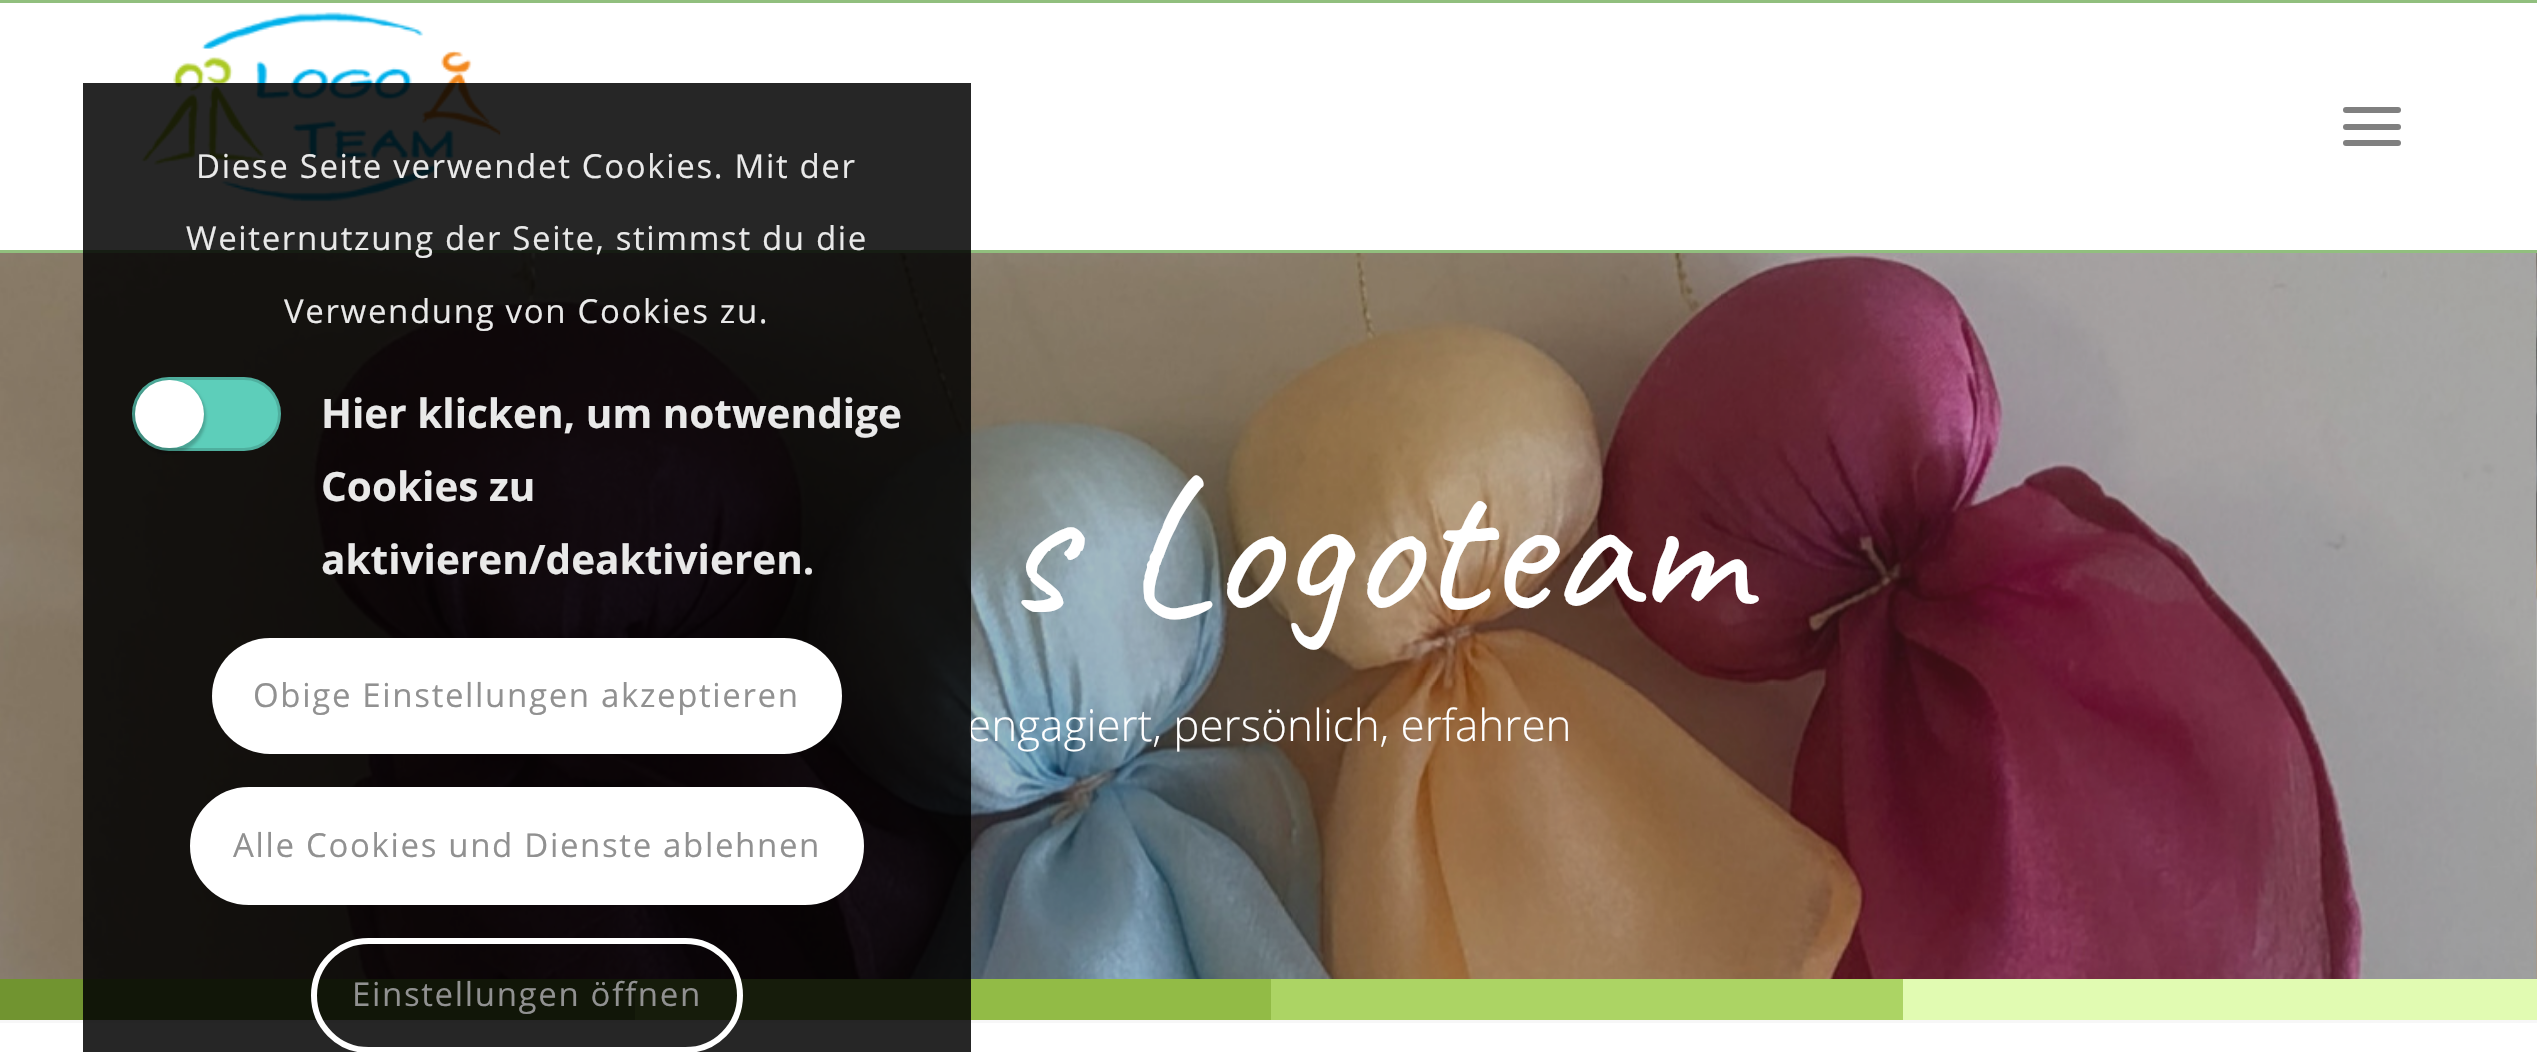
void draw(SkCanvas* canvas) {
    SkPaint paint;
    paint.setAntiAlias(true);
    auto spacedText = [&](const char* s, float x, float y, const SkFont& font, const SkPaint& ink, float letter, float word) {
        std::vector<SkGlyphID> glyphs(font.countText(s, strlen(s), SkTextEncoding::kUTF8));
        std::vector<float> xs(glyphs.size());
        font.textToGlyphs(s, strlen(s), SkTextEncoding::kUTF8, glyphs);
        font.getXPos(glyphs, xs, x);
        float extra = 0;
        for (size_t i = 0; i < glyphs.size(); i++) {
            xs[i] += extra;
            extra += letter + word * (glyphs[i] == font.unicharToGlyph(' '));
        }
        canvas->drawTextBlob(SkTextBlob::MakeFromPosHGlyphs(glyphs, xs, y, font), 0, 0, ink);
    };
    canvas->clear(0xFFFFFFFF);
    paint.setColor(0xFF91BF7E);
    canvas->drawRect(SkRect::MakeXYWH(0, 250, 2537, 3), paint);
    canvas->drawImageRect(SkImages::DeferredFromEncodedData(SkData::MakeFromFileName("img1.png")), SkRect::MakeXYWH(141, 12, 360, 190), SkSamplingOptions());
    canvas->drawImageRect(SkImages::DeferredFromEncodedData(SkData::MakeFromFileName("img2.png")), SkRect::MakeXYWH(0, 253, 2537, 726), SkSamplingOptions());
    SkFont font1(fontMgr->matchFamilyStyle("Open Sans", SkFontStyle(300, SkFontStyle::kNormal_Width, SkFontStyle::kUpright_Slant)), 44);
    font1.setSubpixel(true);
    paint.setColor(0xFFFFFFFF);
    canvas->drawString("engagiert, persönlich, erfahren", 967, 741, font1, paint);
    paint.setColor(0xFF719430);
    canvas->drawRect(SkRect::MakeXYWH(0, 979, 635, 41), paint);
    paint.setColor(0xFF92BB46);
    canvas->drawRect(SkRect::MakeXYWH(635, 979, 636, 41), paint);
    paint.setColor(0xFFF7F7F7);
    canvas->drawRect(SkRect::MakeXYWH(0, 1020, 2537, 3), paint);
    paint.setColor(0xD9000000);
    canvas->drawRect(SkRect::MakeXYWH(83, 83, 888, 969), paint);
    SkFont font2(fontMgr->matchFamilyStyle("Open Sans", SkFontStyle::Normal()), 33);
    font2.setSubpixel(true);
    paint.setColor(0xFFE9E9E9);
    spacedText("Diese Seite verwendet Cookies. Mit der", 196, 178, font2, paint, 1.65f, 0);
    spacedText("Weiternutzung der Seite, stimmst du die", 186, 250, font2, paint, 1.65f, 0);
    spacedText("Verwendung von Cookies zu.", 284, 323, font2, paint, 1.65f, 0);
    paint.setColor(0xFF5DCEBA);
    canvas->drawRoundRect(SkRect::MakeXYWH(132, 377, 149, 74), 37, 37, paint);
    paint.setStyle(SkPaint::kStroke_Style);
    paint.setStrokeWidth(3);
    paint.setColor(0x26000000);
    canvas->drawRoundRect(SkRect::MakeXYWH(133.5f, 378.5f, 146, 71), 35.5f, 35.5f, paint);
    paint.setStyle(SkPaint::kFill_Style);
    paint.setColor(0x33000000);
    paint.setMaskFilter(SkMaskFilter::MakeBlur(kNormal_SkBlurStyle, 1.5f));
    canvas->drawRoundRect(SkRect::MakeXYWH(132, 380, 74, 74), 37, 37, paint);
    paint.setMaskFilter(nullptr);
    paint.setColor(0xFFFFFFFF);
    canvas->drawRoundRect(SkRect::MakeXYWH(135, 380, 69, 68), 34, 34, paint);
    SkFont font3(fontMgr->matchFamilyStyle("Open Sans", SkFontStyle::Bold()), 40.5f);
    font3.setSubpixel(true);
    paint.setColor(0xFFE9E9E9);
    canvas->drawString("Hier klicken, um notwendige", 321, 428, font3, paint);
    canvas->drawString("Cookies zu", 321, 501, font3, paint);
    canvas->drawString("aktivieren/deaktivieren.", 321, 574, font3, paint);
    paint.setColor(0xFFFFFFFF);
    canvas->drawRoundRect(SkRect::MakeXYWH(212, 638, 630, 116), 58, 58, paint);
    paint.setColor(0xFF919191);
    spacedText("Obige Einstellungen akzeptieren", 253, 707, font2, paint, 1.65f, 0);
    paint.setColor(0xFFFFFFFF);
    canvas->drawRoundRect(SkRect::MakeXYWH(193, 790, 668, 112), 56, 56, paint);
    paint.setStyle(SkPaint::kStroke_Style);
    paint.setStrokeWidth(6);
    canvas->drawRoundRect(SkRect::MakeXYWH(193, 790, 668, 112), 56, 56, paint);
    paint.setStyle(SkPaint::kFill_Style);
    paint.setColor(0xFF919191);
    spacedText("Alle Cookies und Dienste ablehnen", 233, 857, font2, paint, 1.65f, 0);
    paint.setStyle(SkPaint::kStroke_Style);
    paint.setColor(0xFFFFFFFF);
    canvas->drawRoundRect(SkRect::MakeXYWH(314, 941, 426, 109), 54.5f, 54.5f, paint);
    paint.setStyle(SkPaint::kFill_Style);
    paint.setColor(0xFF919191);
    spacedText("Einstellungen öffnen", 352, 1006, font2, paint, 1.65f, 0);
    paint.setColor(0xFF91BF7E);
    canvas->drawRect(SkRect::MakeXYWH(0, 0, 2537, 3), paint);
    paint.setColor(0xFF808080);
    canvas->drawRoundRect(SkRect::MakeXYWH(2343, 124, 58, 6), 3, 3, paint);
    canvas->drawRoundRect(SkRect::MakeXYWH(2343, 107, 58, 6), 3, 3, paint);
    canvas->drawRoundRect(SkRect::MakeXYWH(2343, 140, 58, 6), 3, 3, paint);
    SkFont font4(fontMgr->matchFamilyStyle("Caveat", SkFontStyle::Normal()), 198);
    font4.setSubpixel(true);
    paint.setColor(0xFFFFFFFF);
    spacedText("s Logoteam", 1001, 611, font4, paint, 0, 7);
    paint.setColor(0xFFACD464);
    canvas->drawRect(SkRect::MakeXYWH(1271, 979, 632, 41), paint);
    paint.setColor(0xFFE1FBB2);
    canvas->drawRect(SkRect::MakeXYWH(1903, 979, 634, 41), paint);
}
